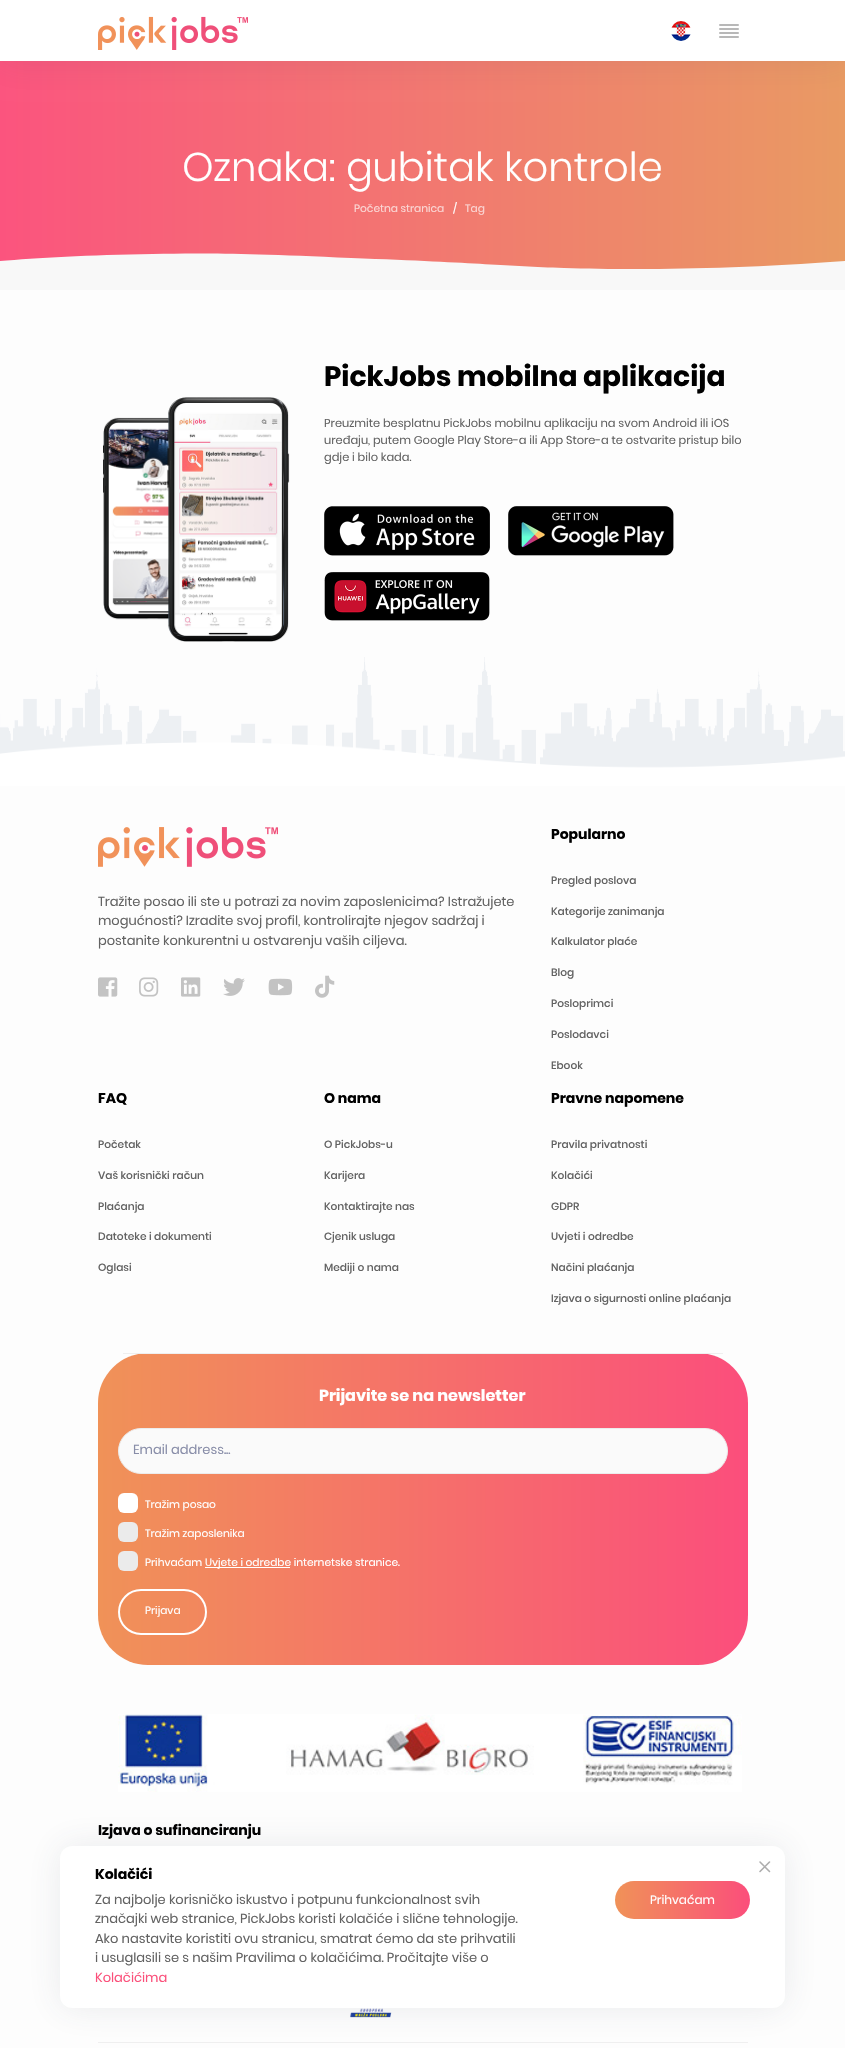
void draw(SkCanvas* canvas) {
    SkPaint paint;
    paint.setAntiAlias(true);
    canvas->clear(0xFFFDFDFD);
    {
        const SkColor colors[] = {0xFFFB547E, 0xFFE99A63};
        const float stops[] = {0, 1};
        const SkPoint ends[] = {{0, 145}, {845, 145}};
        paint.setShader(SkGradientShader::MakeLinear(ends, colors, stops, 2, SkTileMode::kClamp));
        paint.setAlpha(255);
    }
    canvas->drawRect(SkRect::MakeXYWH(0, 61, 845, 209), paint);
    paint.setShader(nullptr);
    paint.setColor(0x1A3F4257);
    paint.setMaskFilter(SkMaskFilter::MakeBlur(kNormal_SkBlurStyle, 17));
    canvas->drawRect(SkRect::MakeXYWH(0, 0, 845, 61), paint);
    paint.setMaskFilter(nullptr);
    paint.setColor(0xFFFFFFFF);
    canvas->drawRect(SkRect::MakeXYWH(0, 0, 845, 61), paint);
    canvas->drawImageRect(SkImages::DeferredFromEncodedData(SkData::MakeFromFileName("img1.png")), SkRect::MakeXYWH(98, 16, 150, 34), SkSamplingOptions());
    canvas->drawImageRect(SkImages::DeferredFromEncodedData(SkData::MakeFromFileName("img2.png")), SkRect::MakeXYWH(671, 21, 20, 20), SkSamplingOptions());
    canvas->drawImageRect(SkImages::DeferredFromEncodedData(SkData::MakeFromFileName("img3.png")), SkRect::MakeXYWH(719, 24, 20, 14), SkSamplingOptions());
    SkFont font1(fontMgr->matchFamilyStyle("Poppins", SkFontStyle(300, SkFontStyle::kNormal_Width, SkFontStyle::kUpright_Slant)), 40);
    font1.setSubpixel(true);
    canvas->drawString("Oznaka: gubitak kontrole", 182, 181, font1, paint);
    SkFont font2(fontMgr->matchFamilyStyle("Poppins", SkFontStyle::Normal()), 10.6f);
    font2.setSubpixel(true);
    paint.setColor(0xFFFBD6D4);
    canvas->drawString("Početna stranica", 354, 212, font2, paint);
    paint.setColor(0xFFFFFFFF);
    canvas->drawString("/", 453, 212, font2, paint);
    paint.setColor(0xFFFBD6D4);
    canvas->drawString("Tag", 465, 212, font2, paint);
    canvas->save();
    canvas->clipRect(SkRect::MakeXYWH(0, 250, 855, 40));
    paint.setColor(0xFFF8F8F8);
    canvas->drawPath(SkPathBuilder().moveTo(0, 261).lineTo(0, 307).lineTo(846, 307).lineTo(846, 261).cubicTo(727, 270, 631, 270, 564, 268).cubicTo(503, 266, 486, 263, 351, 258).cubicTo(243, 253, 198, 253, 153, 254).cubicTo(89, 255, 36, 258, 0, 261).close().detach(), paint);
    canvas->restore();
    canvas->drawImageRect(SkImages::DeferredFromEncodedData(SkData::MakeFromFileName("img4.png")), SkRect::MakeXYWH(103, 397, 187, 245), SkSamplingOptions());
    SkFont font3(fontMgr->matchFamilyStyle("Poppins", SkFontStyle::Bold()), 28);
    font3.setSubpixel(true);
    paint.setColor(0xFF000000);
    canvas->drawString("PickJobs mobilna aplikacija", 324, 386, font3, paint);
    SkFont font4(fontMgr->matchFamilyStyle("Poppins", SkFontStyle::Normal()), 11.4f);
    font4.setSubpixel(true);
    paint.setColor(0xFF626262);
    canvas->drawString("Preuzmite besplatnu PickJobs mobilnu aplikaciju na svom Android ili iOS", 324, 427, font4, paint);
    canvas->drawString("uređaju, putem Google Play Store-a ili App Store-a te ostvarite pristup bilo", 324, 444, font4, paint);
    canvas->drawString("gdje i bilo kada.", 324, 461, font4, paint);
    canvas->drawImageRect(SkImages::DeferredFromEncodedData(SkData::MakeFromFileName("img5.png")), SkRect::MakeXYWH(324, 506, 166, 50), SkSamplingOptions());
    canvas->drawImageRect(SkImages::DeferredFromEncodedData(SkData::MakeFromFileName("img6.png")), SkRect::MakeXYWH(508, 506, 166, 50), SkSamplingOptions());
    canvas->drawImageRect(SkImages::DeferredFromEncodedData(SkData::MakeFromFileName("img7.png")), SkRect::MakeXYWH(324, 572, 166, 49), SkSamplingOptions());
    canvas->drawImageRect(SkImages::DeferredFromEncodedData(SkData::MakeFromFileName("img8.png")), SkRect::MakeXYWH(0, 657, 845, 111), SkSamplingOptions());
    canvas->drawImageRect(SkImages::DeferredFromEncodedData(SkData::MakeFromFileName("img9.png")), SkRect::MakeXYWH(0, 742, 845, 44), SkSamplingOptions());
    canvas->drawImageRect(SkImages::DeferredFromEncodedData(SkData::MakeFromFileName("img10.png")), SkRect::MakeXYWH(98, 827, 180, 40), SkSamplingOptions());
    SkFont font5(fontMgr->matchFamilyStyle("Poppins", SkFontStyle::Normal()), 13);
    font5.setSubpixel(true);
    canvas->drawString("Tražite posao ili ste u potrazi za novim zaposlenicima? Istražujete", 98, 906, font5, paint);
    canvas->drawString("mogućnosti? Izradite svoj profil, kontrolirajte njegov sadržaj i", 98, 925, font5, paint);
    canvas->drawString("postanite konkurentni u ostvarenju vaših ciljeva.", 98, 945, font5, paint);
    canvas->drawImageRect(SkImages::DeferredFromEncodedData(SkData::MakeFromFileName("img11.png")), SkRect::MakeXYWH(98, 977, 20, 20), SkSamplingOptions());
    canvas->drawImageRect(SkImages::DeferredFromEncodedData(SkData::MakeFromFileName("img12.png")), SkRect::MakeXYWH(139, 977, 20, 20), SkSamplingOptions());
    canvas->drawImageRect(SkImages::DeferredFromEncodedData(SkData::MakeFromFileName("img13.png")), SkRect::MakeXYWH(181, 977, 20, 20), SkSamplingOptions());
    canvas->drawImageRect(SkImages::DeferredFromEncodedData(SkData::MakeFromFileName("img14.png")), SkRect::MakeXYWH(223, 978, 22, 18), SkSamplingOptions());
    canvas->drawImageRect(SkImages::DeferredFromEncodedData(SkData::MakeFromFileName("img15.png")), SkRect::MakeXYWH(268, 978, 25, 18), SkSamplingOptions());
    canvas->drawImageRect(SkImages::DeferredFromEncodedData(SkData::MakeFromFileName("img16.png")), SkRect::MakeXYWH(315, 975, 20, 23), SkSamplingOptions());
    SkFont font6(fontMgr->matchFamilyStyle("Poppins", SkFontStyle::Bold()), 14);
    font6.setSubpixel(true);
    paint.setColor(0xFF000000);
    canvas->drawString("Popularno", 551, 839, font6, paint);
    SkFont font7(fontMgr->matchFamilyStyle("Poppins", SkFontStyle(500, SkFontStyle::kNormal_Width, SkFontStyle::kUpright_Slant)), 10.6f);
    font7.setSubpixel(true);
    paint.setColor(0xFF626262);
    canvas->drawString("Pregled poslova", 551, 884, font7, paint);
    canvas->drawString("Kategorije zanimanja", 551, 915, font7, paint);
    canvas->drawString("Kalkulator plaće", 551, 945, font7, paint);
    canvas->drawString("Blog", 551, 976, font7, paint);
    canvas->drawString("Posloprimci", 551, 1007, font7, paint);
    canvas->drawString("Poslodavci", 551, 1038, font7, paint);
    canvas->drawString("Ebook", 551, 1069, font7, paint);
    paint.setColor(0xFF000000);
    canvas->drawString("FAQ", 98, 1103, font6, paint);
    paint.setColor(0xFF626262);
    canvas->drawString("Početak", 98, 1148, font7, paint);
    canvas->drawString("Vaš korisnički račun", 98, 1179, font7, paint);
    canvas->drawString("Plaćanja", 98, 1210, font7, paint);
    canvas->drawString("Datoteke i dokumenti", 98, 1240, font7, paint);
    canvas->drawString("Oglasi", 98, 1271, font7, paint);
    paint.setColor(0xFF000000);
    canvas->drawString("O nama", 324, 1103, font6, paint);
    paint.setColor(0xFF626262);
    canvas->drawString("O PickJobs-u", 324, 1148, font7, paint);
    canvas->drawString("Karijera", 324, 1179, font7, paint);
    canvas->drawString("Kontaktirajte nas", 324, 1210, font7, paint);
    canvas->drawString("Cjenik usluga", 324, 1240, font7, paint);
    canvas->drawString("Mediji o nama", 324, 1271, font7, paint);
    paint.setColor(0xFF000000);
    canvas->drawString("Pravne napomene", 551, 1103, font6, paint);
    paint.setColor(0xFF626262);
    canvas->drawString("Pravila privatnosti", 551, 1148, font7, paint);
    canvas->drawString("Kolačići", 551, 1179, font7, paint);
    canvas->drawString("GDPR", 551, 1210, font7, paint);
    canvas->drawString("Uvjeti i odredbe", 551, 1240, font7, paint);
    canvas->drawString("Načini plaćanja", 551, 1271, font7, paint);
    canvas->drawString("Izjava o sigurnosti online plaćanja", 551, 1302, font7, paint);
    {
        const SkColor colors[] = {0xFFF09258, 0xFFFB4E7C};
        const float stops[] = {0, 1};
        const SkPoint ends[] = {{98, 1510}, {748, 1510}};
        paint.setShader(SkGradientShader::MakeLinear(ends, colors, stops, 2, SkTileMode::kClamp));
        paint.setAlpha(255);
    }
    canvas->drawRoundRect(SkRect::MakeXYWH(98, 1353, 650, 312), 50, 50, paint);
    paint.setShader(nullptr);
    paint.setColor(0xFFEFEFEF);
    canvas->drawRect(SkRect::MakeXYWH(123, 1353, 600, 1), paint);
    SkFont font8(fontMgr->matchFamilyStyle("Poppins", SkFontStyle::Bold()), 16);
    font8.setSubpixel(true);
    paint.setColor(0xFFFFFFFF);
    canvas->drawString("Prijavite se na newsletter", 319, 1401, font8, paint);
    paint.setColor(0xFFFAFAFA);
    canvas->drawRoundRect(SkRect::MakeXYWH(118.5f, 1428.5f, 609, 45), 22.5f, 22.5f, paint);
    paint.setStyle(SkPaint::kStroke_Style);
    paint.setStrokeWidth(1);
    paint.setColor(0xFFECECEC);
    canvas->drawRoundRect(SkRect::MakeXYWH(118.5f, 1428.5f, 609, 45), 22.5f, 22.5f, paint);
    paint.setStyle(SkPaint::kFill_Style);
    paint.setColor(0xFF888DA8);
    canvas->drawString("Email address...", 133, 1454, font5, paint);
    paint.setColor(0xFFFFFFFF);
    canvas->drawRoundRect(SkRect::MakeXYWH(118, 1493, 20, 20), 6, 6, paint);
    canvas->drawString("Tražim posao", 145, 1508, font2, paint);
    paint.setColor(0xFFEBEBEB);
    canvas->drawRoundRect(SkRect::MakeXYWH(118, 1522, 20, 20), 6, 6, paint);
    paint.setColor(0xFFFFFFFF);
    canvas->drawString("Tražim zaposlenika", 145, 1537, font2, paint);
    paint.setColor(0xFFEBEBEB);
    canvas->drawRoundRect(SkRect::MakeXYWH(118, 1551, 20, 20), 6, 6, paint);
    paint.setColor(0xFFFFFFFF);
    canvas->drawString("Prihvaćam", 145, 1566, font2, paint);
    canvas->drawRect(SkRect::MakeXYWH(205, 1567, 85, 1), paint);
    canvas->drawString("Uvjete i odredbe internetske stranice.", 205, 1566, font2, paint);
    paint.setStyle(SkPaint::kStroke_Style);
    paint.setStrokeWidth(2);
    canvas->drawRoundRect(SkRect::MakeXYWH(119, 1590, 87, 44), 22, 22, paint);
    paint.setStyle(SkPaint::kFill_Style);
    canvas->drawString("Prijava", 145, 1614, font2, paint);
    canvas->drawImageRect(SkImages::DeferredFromEncodedData(SkData::MakeFromFileName("img17.png")), SkRect::MakeXYWH(118, 1714, 624, 78), SkSamplingOptions());
    paint.setColor(0xFF000000);
    canvas->drawString("Izjava o sufinanciranju", 98, 1835, font6, paint);
    canvas->drawImageRect(SkImages::DeferredFromEncodedData(SkData::MakeFromFileName("img18.png")), SkRect::MakeXYWH(350, 2008, 42, 10), SkSamplingOptions());
    paint.setColor(0xFFEFEFEF);
    canvas->drawRect(SkRect::MakeXYWH(98, 2042, 650, 1), paint);
    paint.setColor(0x1A3F4257);
    paint.setMaskFilter(SkMaskFilter::MakeBlur(kNormal_SkBlurStyle, 17));
    canvas->drawRoundRect(SkRect::MakeXYWH(60, 1846, 725, 162), 12, 12, paint);
    paint.setMaskFilter(nullptr);
    paint.setColor(0xFFFFFFFF);
    canvas->drawRoundRect(SkRect::MakeXYWH(60, 1846, 725, 162), 12, 12, paint);
    paint.setColor(0xFF000000);
    canvas->drawString("Kolačići", 95, 1879, font6, paint);
    paint.setColor(0xFF626262);
    canvas->drawString("Za najbolje korisničko iskustvo i potpunu funkcionalnost svih", 95, 1904, font5, paint);
    canvas->drawString("značajki web stranice, PickJobs koristi kolačiće i slične tehnologije.", 95, 1923, font5, paint);
    canvas->drawString("Ako nastavite koristiti ovu stranicu, smatrat ćemo da ste prihvatili", 95, 1943, font5, paint);
    canvas->drawString("i usuglasili se s našim Pravilima o kolačićima. Pročitajte više o", 95, 1962, font5, paint);
    paint.setColor(0xFFFB4F7A);
    canvas->drawString("Kolačićima", 95, 1982, font5, paint);
    {
        const SkColor colors[] = {0xFFF09258, 0xFFFB4E7B};
        const float stops[] = {0, 1};
        const SkPoint ends[] = {{615, 1900}, {750, 1900}};
        paint.setShader(SkGradientShader::MakeLinear(ends, colors, stops, 2, SkTileMode::kClamp));
        paint.setAlpha(255);
    }
    canvas->drawRoundRect(SkRect::MakeXYWH(615, 1881, 135, 38), 19, 19, paint);
    SkFont font9(fontMgr->matchFamilyStyle("Poppins", SkFontStyle::Normal()), 12);
    font9.setSubpixel(true);
    paint.setShader(nullptr);
    paint.setColor(0xFFFFFFFF);
    canvas->drawString("Prihvaćam", 650, 1904, font9, paint);
    paint.setStyle(SkPaint::kStroke_Style);
    paint.setStrokeWidth(1.6f);
    paint.setStrokeCap(SkPaint::kRound_Cap);
    paint.setStrokeJoin(SkPaint::kRound_Join);
    paint.setColor(0xFFADADAD);
    canvas->drawPath(SkPathBuilder().moveTo(769.5f, 1862).lineTo(760, 1871.5f).moveTo(760, 1862).lineTo(769.5f, 1871.5f).detach(), paint);
}
